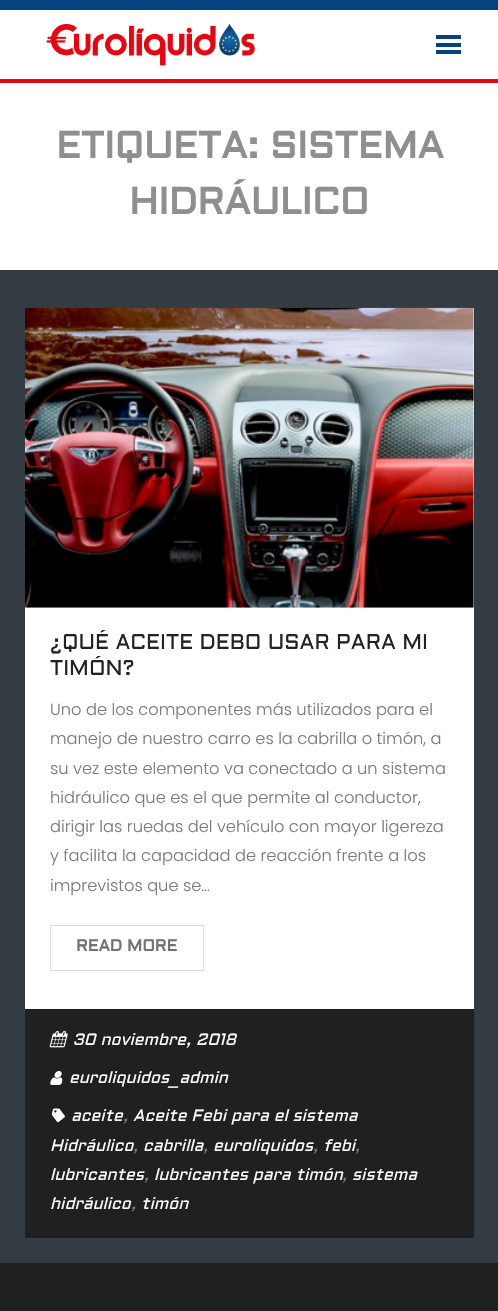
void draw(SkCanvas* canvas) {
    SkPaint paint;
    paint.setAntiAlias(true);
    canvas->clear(0xFFFFFFFF);
    paint.setColor(0xFF054281);
    canvas->drawRect(SkRect::MakeXYWH(0, 0, 498, 10), paint);
    paint.setColor(0xFFE30613);
    canvas->drawRect(SkRect::MakeXYWH(0, 79, 498, 4), paint);
    canvas->drawImageRect(SkImages::DeferredFromEncodedData(SkData::MakeFromFileName("img1.png")), SkRect::MakeXYWH(46, 23, 209, 43), SkSamplingOptions());
    paint.setColor(0xFF054281);
    canvas->drawRect(SkRect::MakeXYWH(436, 35, 25, 4), paint);
    canvas->drawRect(SkRect::MakeXYWH(436, 43, 25, 4), paint);
    canvas->drawRect(SkRect::MakeXYWH(436, 50, 25, 4), paint);
    SkFont font1(fontMgr->matchFamilyStyle("Aldrich", SkFontStyle::Bold()), 37.5f);
    font1.setSubpixel(true);
    paint.setColor(0xFF8F8F8F);
    canvas->drawString("ETIQUETA: SISTEMA", 56, 158, font1, paint);
    canvas->drawString("HIDRÁULICO", 129, 214, font1, paint);
    paint.setColor(0xFF333B43);
    canvas->drawRect(SkRect::MakeXYWH(0, 270, 498, 993), paint);
    paint.setColor(0xFFFFFFFF);
    canvas->drawRect(SkRect::MakeXYWH(25, 308, 449, 701), paint);
    canvas->drawImageRect(SkImages::DeferredFromEncodedData(SkData::MakeFromFileName("img2.png")), SkRect::MakeXYWH(25, 307, 449, 301), SkSamplingOptions());
    SkFont font2(fontMgr->matchFamilyStyle("Aldrich", SkFontStyle::Normal()), 21.25f);
    font2.setSubpixel(true);
    paint.setColor(0xFF232323);
    canvas->drawString("¿QUÉ ACEITE DEBO USAR PARA MI", 50, 649, font2, paint);
    canvas->drawString("TIMÓN?", 50, 675, font2, paint);
    SkFont font3(fontMgr->matchFamilyStyle("Poppins", SkFontStyle(300, SkFontStyle::kNormal_Width, SkFontStyle::kUpright_Slant)), 16.25f);
    font3.setSubpixel(true);
    paint.setColor(0xFF7A7A7A);
    canvas->drawString("Uno de los componentes más utilizados para el", 50, 715, font3, paint);
    canvas->drawString("manejo de nuestro carro es la cabrilla o timón, a", 50, 744, font3, paint);
    canvas->drawString("su vez este elemento va conectado a un sistema", 50, 774, font3, paint);
    canvas->drawString("hidráulico que es el que permite al conductor,", 50, 803, font3, paint);
    canvas->drawString("dirigir las ruedas del vehículo con mayor ligereza", 50, 832, font3, paint);
    canvas->drawString("y facilita la capacidad de reacción frente a los", 50, 861, font3, paint);
    canvas->drawString("imprevistos que se…", 50, 891, font3, paint);
    paint.setStyle(SkPaint::kStroke_Style);
    paint.setStrokeWidth(1);
    paint.setColor(0xFFDDDDDD);
    canvas->drawRect(SkRect::MakeXYWH(50.5f, 925.5f, 153, 45), paint);
    SkFont font4(fontMgr->matchFamilyStyle("Aldrich", SkFontStyle::Bold()), 16.25f);
    font4.setSubpixel(true);
    paint.setStyle(SkPaint::kFill_Style);
    paint.setColor(0xFF727272);
    canvas->drawString("READ MORE", 76, 951, font4, paint);
    paint.setColor(0xFF1E2021);
    canvas->drawPath(SkPathBuilder().moveTo(25, 1009).lineTo(25, 1238).lineTo(424, 1238).lineTo(50, 1238).lineTo(50, 1009).close().detach(), paint);
    canvas->drawPath(SkPathBuilder().moveTo(75, 1238).lineTo(474, 1238).lineTo(474, 1009).lineTo(449, 1009).lineTo(449, 1238).close().detach(), paint);
    canvas->drawRect(SkRect::MakeXYWH(50, 1009, 399, 229), paint);
    canvas->drawImageRect(SkImages::DeferredFromEncodedData(SkData::MakeFromFileName("img3.png")), SkRect::MakeXYWH(49, 1031, 19, 17), SkSamplingOptions());
    SkFont font5(fontMgr->matchFamilyStyle("Aldrich", SkFontStyle::Italic()), 16.25f);
    font5.setSubpixel(true);
    paint.setColor(0xFFFFFFFF);
    canvas->drawString("30 noviembre, 2018", 73, 1045, font5, paint);
    canvas->drawImageRect(SkImages::DeferredFromEncodedData(SkData::MakeFromFileName("img4.png")), SkRect::MakeXYWH(50, 1071, 13, 14), SkSamplingOptions());
    canvas->drawString("euroliquidos_admin", 69, 1083, font5, paint);
    canvas->drawImageRect(SkImages::DeferredFromEncodedData(SkData::MakeFromFileName("img5.png")), SkRect::MakeXYWH(51, 1108, 14, 15), SkSamplingOptions());
    canvas->drawString("aceite", 71, 1121, font5, paint);
    paint.setColor(0xFF7A7A7A);
    canvas->drawString(",", 123, 1121, font5, paint);
    paint.setColor(0xFFFFFFFF);
    canvas->drawString("Aceite Febi para el sistema", 133, 1121, font5, paint);
    canvas->drawString("Hidráulico", 50, 1151, font5, paint);
    paint.setColor(0xFF7A7A7A);
    canvas->drawString(",", 133, 1151, font5, paint);
    paint.setColor(0xFFFFFFFF);
    canvas->drawString("cabrilla", 143, 1151, font5, paint);
    paint.setColor(0xFF7A7A7A);
    canvas->drawString(",", 203, 1151, font5, paint);
    paint.setColor(0xFFFFFFFF);
    canvas->drawString("euroliquidos", 213, 1151, font5, paint);
    paint.setColor(0xFF7A7A7A);
    canvas->drawString(",", 313, 1151, font5, paint);
    paint.setColor(0xFFFFFFFF);
    canvas->drawString("febi", 323, 1151, font5, paint);
    paint.setColor(0xFF7A7A7A);
    canvas->drawString(",", 355, 1151, font5, paint);
    paint.setColor(0xFFFFFFFF);
    canvas->drawString("lubricantes", 50, 1180, font5, paint);
    paint.setColor(0xFF7A7A7A);
    canvas->drawString(",", 144, 1180, font5, paint);
    paint.setColor(0xFFFFFFFF);
    canvas->drawString("lubricantes para timón", 154, 1180, font5, paint);
    paint.setColor(0xFF7A7A7A);
    canvas->drawString(",", 342, 1180, font5, paint);
    paint.setColor(0xFFFFFFFF);
    canvas->drawString("sistema", 352, 1180, font5, paint);
    canvas->drawString("hidráulico", 50, 1209, font5, paint);
    paint.setColor(0xFF7A7A7A);
    canvas->drawString(",", 131, 1209, font5, paint);
    paint.setColor(0xFFFFFFFF);
    canvas->drawString("timón", 141, 1209, font5, paint);
    paint.setColor(0xFF1E2021);
    canvas->drawRect(SkRect::MakeXYWH(0, 1263, 498, 48), paint);
}
